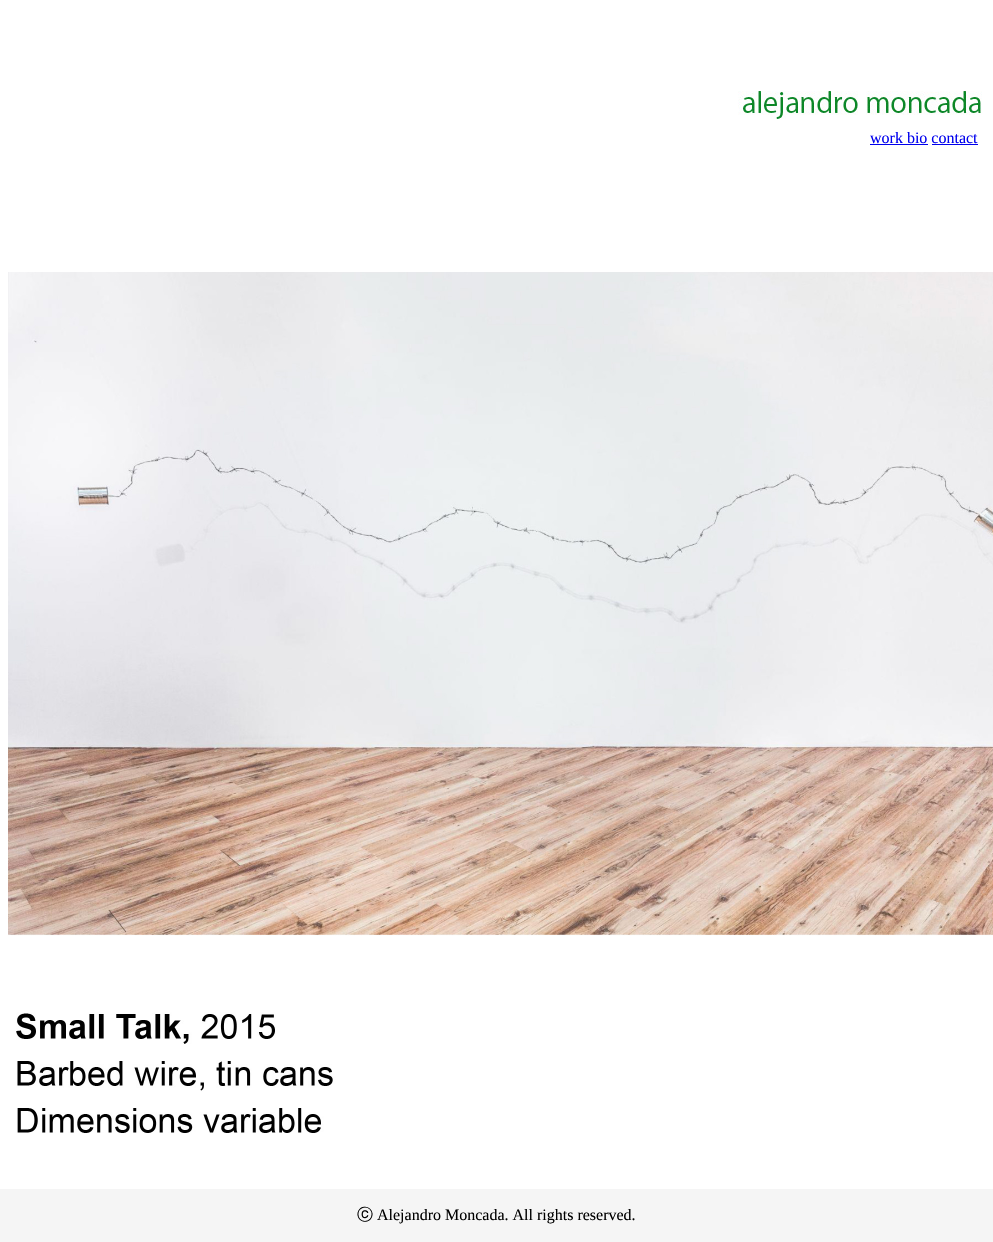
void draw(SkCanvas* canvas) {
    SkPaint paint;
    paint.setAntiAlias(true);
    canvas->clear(0xFFFFFFFF);
    canvas->drawImageRect(SkImages::DeferredFromEncodedData(SkData::MakeFromFileName("img1.png")), SkRect::MakeXYWH(738, 91, 244, 28), SkSamplingOptions());
    SkFont font1(fontMgr->matchFamilyStyle("Liberation Serif", SkFontStyle::Normal()), 16);
    font1.setSubpixel(true);
    paint.setColor(0xFF0000EE);
    canvas->drawString("work bio contact", 870, 143, font1, paint);
    canvas->drawRect(SkRect::MakeXYWH(870, 144, 58, 1), paint);
    canvas->drawRect(SkRect::MakeXYWH(932, 144, 46, 1), paint);
    canvas->drawImageRect(SkImages::DeferredFromEncodedData(SkData::MakeFromFileName("img2.png")), SkRect::MakeXYWH(8, 272, 985, 861), SkSamplingOptions());
    paint.setColor(0xFFF5F5F5);
    canvas->drawRect(SkRect::MakeXYWH(0, 1189, 993, 53), paint);
    SkFont font2(fontMgr->matchFamilyStyle("WenQuanYi Zen Hei", SkFontStyle(500, SkFontStyle::kNormal_Width, SkFontStyle::kUpright_Slant)), 16);
    font2.setSubpixel(true);
    paint.setColor(0xFF000000);
    canvas->drawString("ⓒ", 357, 1220, font2, paint);
    canvas->drawString("Alejandro Moncada. All rights reserved.", 377, 1220, font1, paint);
}
